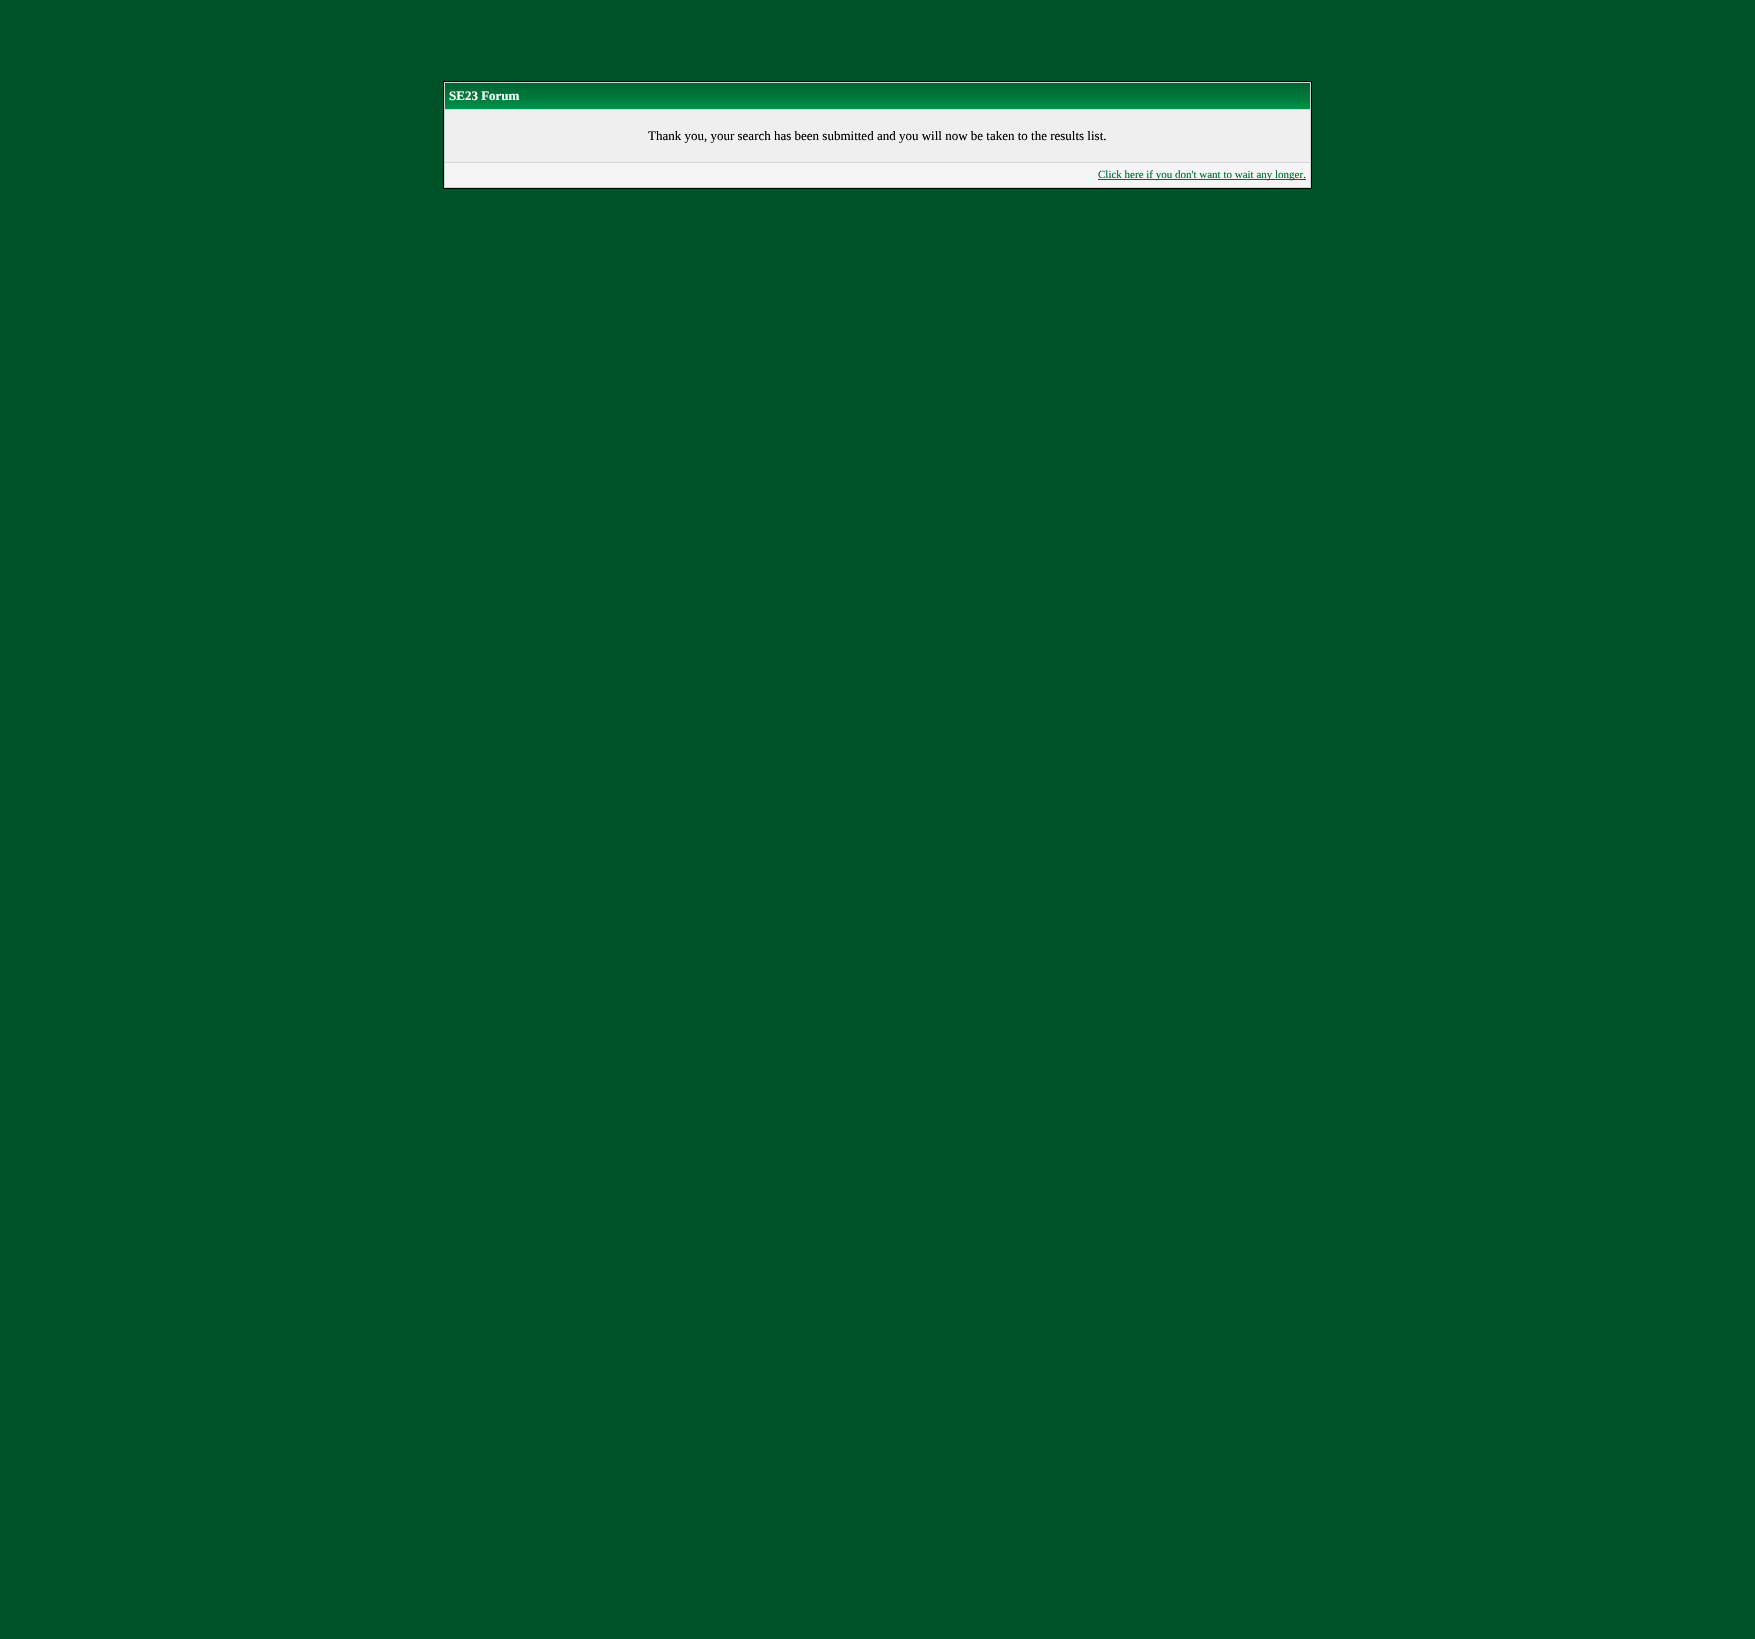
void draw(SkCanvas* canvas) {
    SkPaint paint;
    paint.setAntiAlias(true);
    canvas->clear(0xFF005329);
    paint.setColor(0xFFD4D4D4);
    canvas->drawRect(SkRect::MakeXYWH(443.5f, 81.5f, 868, 107), paint);
    paint.setStyle(SkPaint::kStroke_Style);
    paint.setStrokeWidth(1);
    paint.setColor(0xFF000000);
    canvas->drawRect(SkRect::MakeXYWH(443.5f, 81.5f, 868, 107), paint);
    paint.setStyle(SkPaint::kFill_Style);
    paint.setColor(0xFF006633);
    canvas->drawRect(SkRect::MakeXYWH(445, 83, 865, 5), paint);
    canvas->drawImageRect(SkImages::DeferredFromEncodedData(SkData::MakeFromFileName("img1.png")), SkRect::MakeXYWH(445, 88, 865, 21), SkSamplingOptions());
    SkFont font1(fontMgr->matchFamilyStyle("Liberation Serif", SkFontStyle::Bold()), 13);
    font1.setSubpixel(true);
    paint.setColor(0xFFFFFFFF);
    canvas->drawString("SE23 Forum", 449, 100, font1, paint);
    paint.setColor(0xFFEFEFEF);
    canvas->drawRect(SkRect::MakeXYWH(445, 110, 865, 52), paint);
    SkFont font2(fontMgr->matchFamilyStyle("Liberation Serif", SkFontStyle::Normal()), 13);
    font2.setSubpixel(true);
    paint.setColor(0xFF000000);
    canvas->drawString("Thank you, your search has been submitted and you will now be taken to the results list.", 648, 140, font2, paint);
    paint.setColor(0xFFF5F5F5);
    canvas->drawRect(SkRect::MakeXYWH(445, 163, 865, 24), paint);
    paint.setColor(0xFF006633);
    canvas->drawRect(SkRect::MakeXYWH(1098, 179, 208, 1), paint);
    SkFont font3(fontMgr->matchFamilyStyle("Liberation Serif", SkFontStyle::Normal()), 11);
    font3.setSubpixel(true);
    canvas->drawString("Click here if you don't want to wait any longer.", 1098, 178, font3, paint);
}
